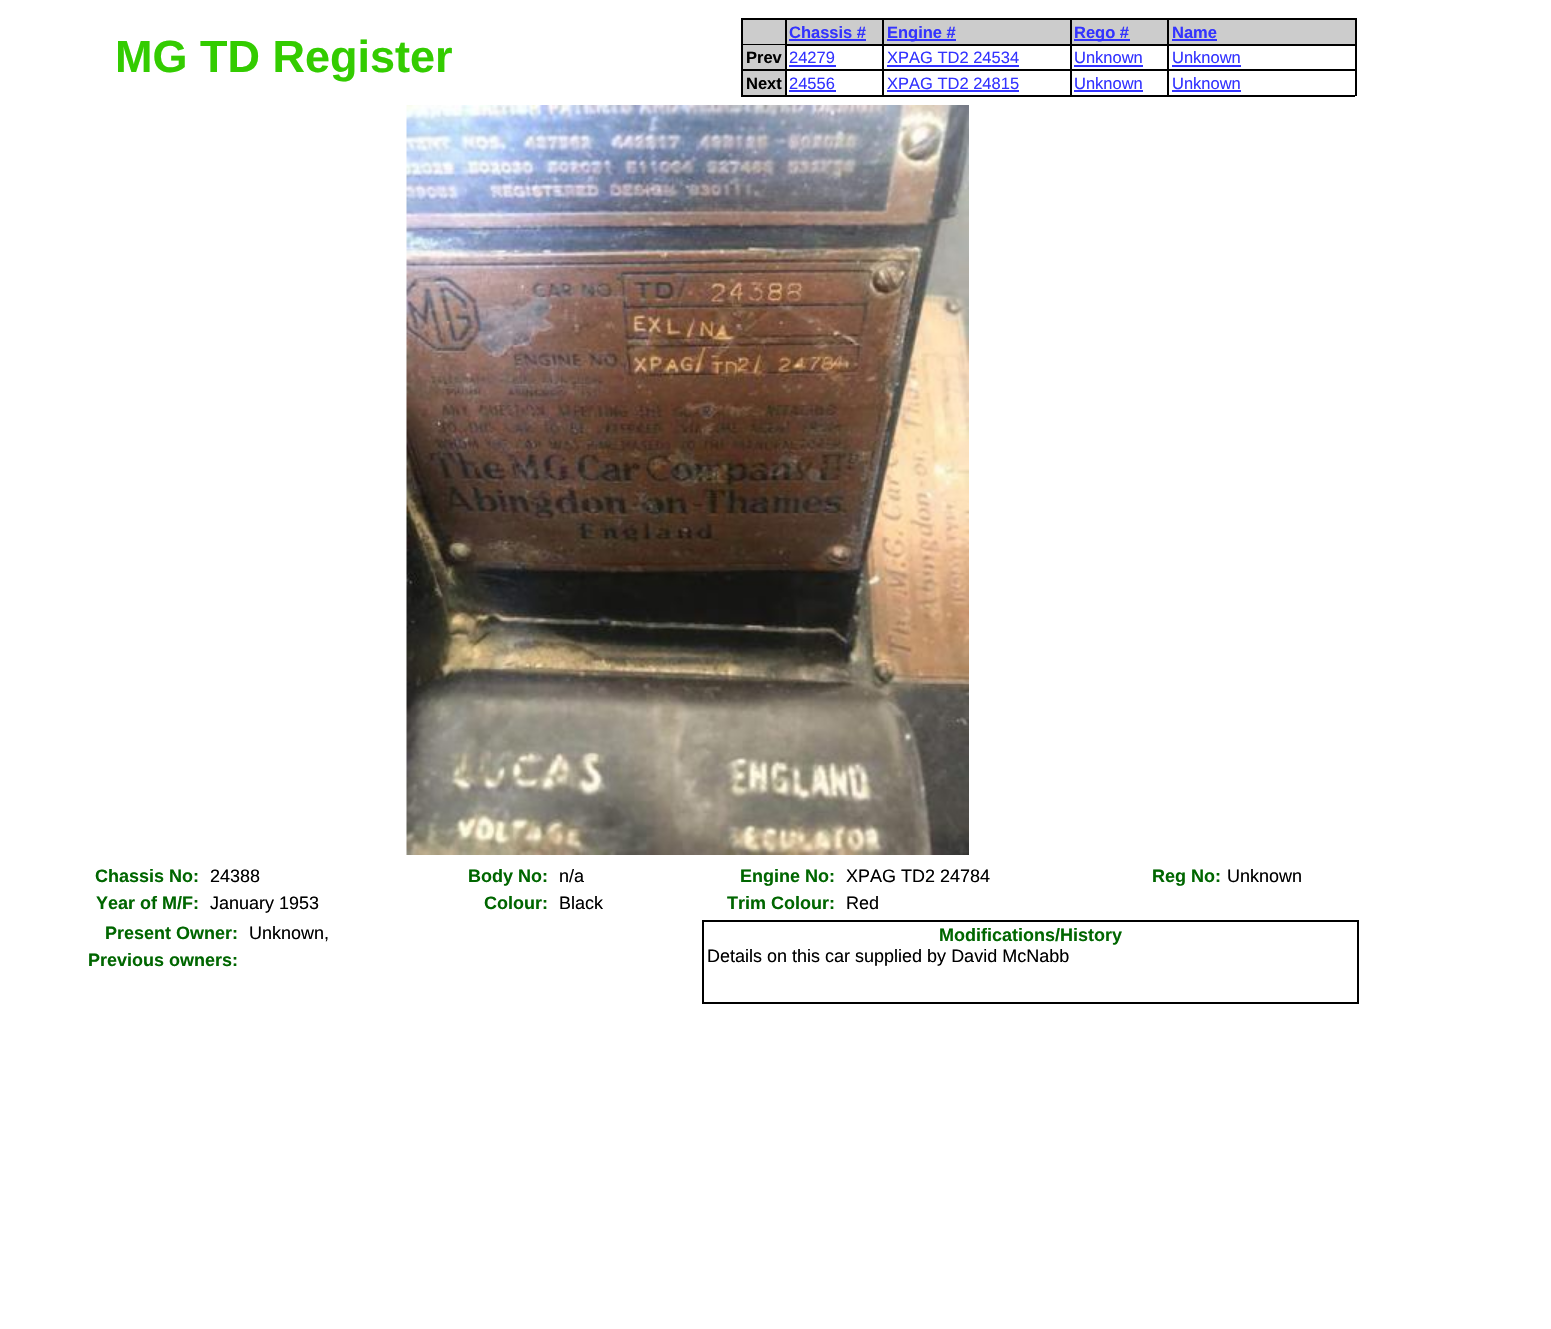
void draw(SkCanvas* canvas) {
    SkPaint paint;
    paint.setAntiAlias(true);
    canvas->clear(0xFFFFFFFF);
    SkFont font1(fontMgr->matchFamilyStyle("Liberation Sans", SkFontStyle::Bold()), 45);
    font1.setSubpixel(true);
    paint.setColor(0xFF33CC00);
    canvas->drawString("MG TD Register", 115, 72, font1, paint);
    paint.setColor(0xFF000000);
    canvas->drawRect(SkRect::MakeXYWH(741, 18, 615, 2), paint);
    canvas->drawRect(SkRect::MakeXYWH(1355, 18, 2, 78), paint);
    paint.setColor(0xFFCCCCCC);
    canvas->drawRect(SkRect::MakeXYWH(743, 20, 42, 24), paint);
    paint.setColor(0xFF000000);
    canvas->drawRect(SkRect::MakeXYWH(741, 44, 44, 1), paint);
    canvas->drawRect(SkRect::MakeXYWH(741, 20, 2, 25), paint);
    paint.setColor(0xFFCCCCCC);
    canvas->drawRect(SkRect::MakeXYWH(787, 20, 95, 24), paint);
    paint.setColor(0xFF000000);
    canvas->drawRect(SkRect::MakeXYWH(785, 44, 570, 2), paint);
    canvas->drawRect(SkRect::MakeXYWH(785, 20, 2, 51), paint);
    SkFont font2(fontMgr->matchFamilyStyle("Liberation Sans", SkFontStyle::Bold()), 16.5f);
    font2.setSubpixel(true);
    paint.setColor(0xFF3333FF);
    canvas->drawString("Chassis #", 789, 38, font2, paint);
    canvas->drawRect(SkRect::MakeXYWH(789, 39, 77, 2), paint);
    paint.setColor(0xFFCCCCCC);
    canvas->drawRect(SkRect::MakeXYWH(884, 20, 186, 24), paint);
    paint.setColor(0xFF000000);
    canvas->drawRect(SkRect::MakeXYWH(882, 20, 2, 25), paint);
    paint.setColor(0xFF3333FF);
    canvas->drawRect(SkRect::MakeXYWH(887, 39, 69, 2), paint);
    canvas->drawString("Engine #", 887, 38, font2, paint);
    paint.setColor(0xFFCCCCCC);
    canvas->drawRect(SkRect::MakeXYWH(1072, 20, 95, 24), paint);
    paint.setColor(0xFF000000);
    canvas->drawRect(SkRect::MakeXYWH(1070, 20, 2, 25), paint);
    paint.setColor(0xFF3333FF);
    canvas->drawRect(SkRect::MakeXYWH(1074, 39, 56, 2), paint);
    canvas->drawString("Rego #", 1074, 38, font2, paint);
    paint.setColor(0xFFCCCCCC);
    canvas->drawRect(SkRect::MakeXYWH(1169, 20, 186, 24), paint);
    paint.setColor(0xFF000000);
    canvas->drawRect(SkRect::MakeXYWH(1167, 20, 2, 25), paint);
    paint.setColor(0xFF3333FF);
    canvas->drawString("Name", 1172, 38, font2, paint);
    canvas->drawRect(SkRect::MakeXYWH(1172, 39, 45, 2), paint);
    paint.setColor(0xFF000000);
    canvas->drawRect(SkRect::MakeXYWH(787, 69, 568, 2), paint);
    paint.setColor(0xFFCCCCCC);
    canvas->drawRect(SkRect::MakeXYWH(743, 45, 42, 24), paint);
    paint.setColor(0xFF000000);
    canvas->drawRect(SkRect::MakeXYWH(741, 69, 44, 2), paint);
    canvas->drawRect(SkRect::MakeXYWH(741, 45, 2, 26), paint);
    canvas->drawString("Prev", 746, 63, font2, paint);
    SkFont font3(fontMgr->matchFamilyStyle("Liberation Sans", SkFontStyle::Normal()), 16.5f);
    font3.setSubpixel(true);
    paint.setColor(0xFF3333FF);
    canvas->drawString("24279", 789, 63, font3, paint);
    canvas->drawRect(SkRect::MakeXYWH(789, 65, 47, 2), paint);
    paint.setColor(0xFF000000);
    canvas->drawRect(SkRect::MakeXYWH(882, 45, 2, 26), paint);
    paint.setColor(0xFF3333FF);
    canvas->drawString("XPAG TD2 24534", 887, 63, font3, paint);
    canvas->drawRect(SkRect::MakeXYWH(887, 65, 132, 2), paint);
    paint.setColor(0xFF000000);
    canvas->drawRect(SkRect::MakeXYWH(1070, 45, 2, 26), paint);
    paint.setColor(0xFF3333FF);
    canvas->drawString("Unknown", 1074, 63, font3, paint);
    canvas->drawRect(SkRect::MakeXYWH(1074, 65, 69, 2), paint);
    paint.setColor(0xFF000000);
    canvas->drawRect(SkRect::MakeXYWH(1167, 45, 2, 26), paint);
    paint.setColor(0xFF3333FF);
    canvas->drawString("Unknown", 1172, 63, font3, paint);
    canvas->drawRect(SkRect::MakeXYWH(1172, 65, 69, 2), paint);
    paint.setColor(0xFFCCCCCC);
    canvas->drawRect(SkRect::MakeXYWH(743, 71, 42, 24), paint);
    paint.setColor(0xFF000000);
    canvas->drawRect(SkRect::MakeXYWH(741, 95, 614, 2), paint);
    canvas->drawRect(SkRect::MakeXYWH(741, 71, 2, 25), paint);
    canvas->drawString("Next", 746, 89, font2, paint);
    canvas->drawRect(SkRect::MakeXYWH(785, 71, 2, 25), paint);
    paint.setColor(0xFF3333FF);
    canvas->drawString("24556", 789, 89, font3, paint);
    canvas->drawRect(SkRect::MakeXYWH(789, 90, 47, 2), paint);
    paint.setColor(0xFF000000);
    canvas->drawRect(SkRect::MakeXYWH(882, 71, 2, 25), paint);
    paint.setColor(0xFF3333FF);
    canvas->drawString("XPAG TD2 24815", 887, 89, font3, paint);
    canvas->drawRect(SkRect::MakeXYWH(887, 90, 132, 2), paint);
    paint.setColor(0xFF000000);
    canvas->drawRect(SkRect::MakeXYWH(1070, 71, 2, 25), paint);
    paint.setColor(0xFF3333FF);
    canvas->drawString("Unknown", 1074, 89, font3, paint);
    canvas->drawRect(SkRect::MakeXYWH(1074, 90, 69, 2), paint);
    paint.setColor(0xFF000000);
    canvas->drawRect(SkRect::MakeXYWH(1167, 71, 2, 25), paint);
    paint.setColor(0xFF3333FF);
    canvas->drawString("Unknown", 1172, 89, font3, paint);
    canvas->drawRect(SkRect::MakeXYWH(1172, 90, 69, 2), paint);
    canvas->drawImageRect(SkImages::DeferredFromEncodedData(SkData::MakeFromFileName("img1.png")), SkRect::MakeXYWH(406, 105, 563, 750), SkSamplingOptions());
    SkFont font4(fontMgr->matchFamilyStyle("Liberation Sans", SkFontStyle::Bold()), 18);
    font4.setSubpixel(true);
    paint.setColor(0xFF006600);
    canvas->drawString("Chassis No:", 95, 882, font4, paint);
    SkFont font5(fontMgr->matchFamilyStyle("Liberation Sans", SkFontStyle::Normal()), 18);
    font5.setSubpixel(true);
    paint.setColor(0xFF000000);
    canvas->drawString("24388", 210, 882, font5, paint);
    paint.setColor(0xFF006600);
    canvas->drawString("Body No:", 468, 882, font4, paint);
    paint.setColor(0xFF000000);
    canvas->drawString("n/a", 559, 882, font5, paint);
    paint.setColor(0xFF006600);
    canvas->drawString("Engine No:", 740, 882, font4, paint);
    paint.setColor(0xFF000000);
    canvas->drawString("XPAG TD2 24784", 846, 882, font5, paint);
    paint.setColor(0xFF006600);
    canvas->drawString("Reg No:", 1152, 882, font4, paint);
    paint.setColor(0xFF000000);
    canvas->drawString("Unknown", 1227, 882, font5, paint);
    paint.setColor(0xFF006600);
    canvas->drawString("Year of M/F:", 96, 909, font4, paint);
    paint.setColor(0xFF000000);
    canvas->drawString("January 1953", 210, 909, font5, paint);
    paint.setColor(0xFF006600);
    canvas->drawString("Colour:", 484, 909, font4, paint);
    paint.setColor(0xFF000000);
    canvas->drawString("Black", 559, 909, font5, paint);
    paint.setColor(0xFF006600);
    canvas->drawString("Trim Colour:", 727, 909, font4, paint);
    paint.setColor(0xFF000000);
    canvas->drawString("Red", 846, 909, font5, paint);
    paint.setColor(0xFF006600);
    canvas->drawString("Present Owner:", 105, 939, font4, paint);
    paint.setColor(0xFF000000);
    canvas->drawString("Unknown,", 249, 939, font5, paint);
    paint.setStyle(SkPaint::kStroke_Style);
    paint.setStrokeWidth(2);
    canvas->drawRect(SkRect::MakeXYWH(703, 921, 655, 82), paint);
    paint.setStyle(SkPaint::kFill_Style);
    paint.setColor(0xFF006600);
    canvas->drawString("Modifications/History", 939, 941, font4, paint);
    paint.setColor(0xFF000000);
    canvas->drawString("Details on this car supplied by David McNabb", 707, 962, font5, paint);
    paint.setColor(0xFF006600);
    canvas->drawString("Previous owners:", 88, 966, font4, paint);
}
